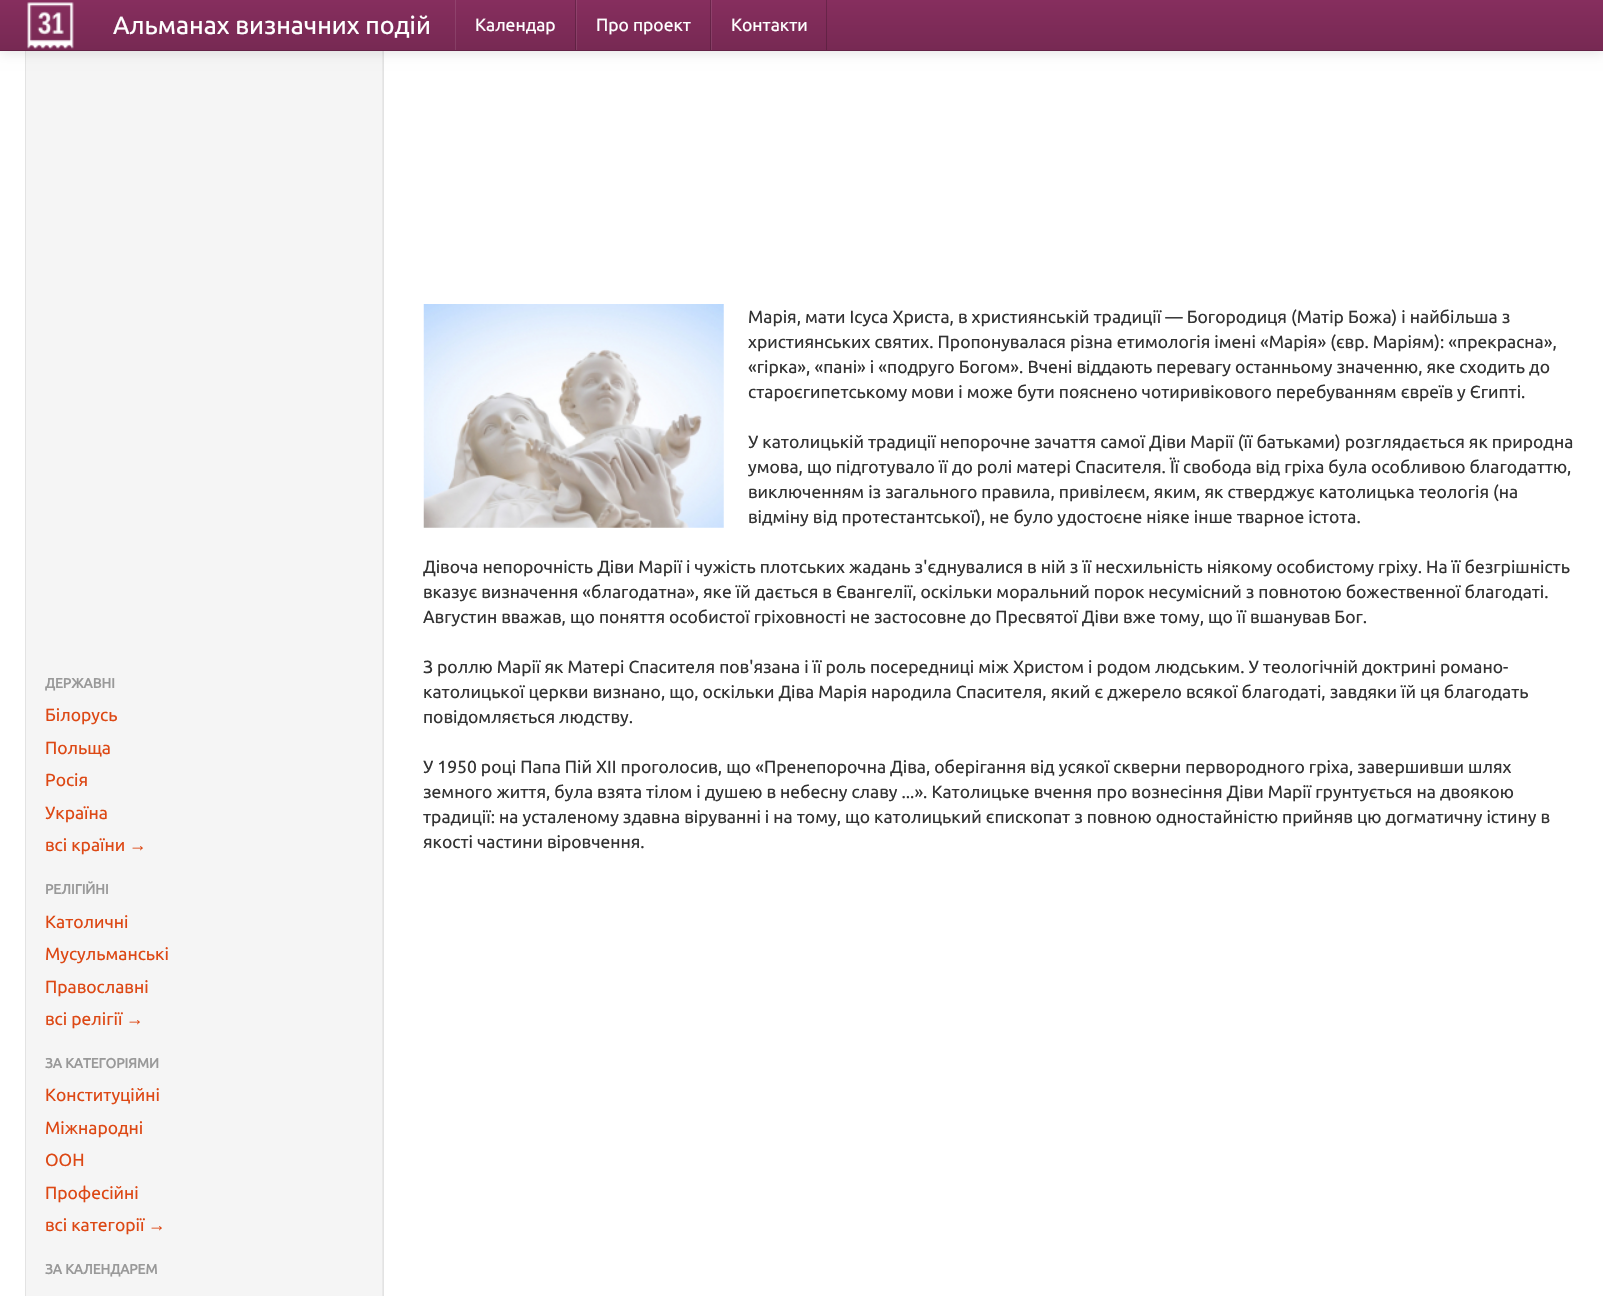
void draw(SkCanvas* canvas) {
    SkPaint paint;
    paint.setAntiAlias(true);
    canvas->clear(0xFFFFFFFF);
    paint.setColor(0xFFF5F5F5);
    canvas->drawRect(SkRect::MakeXYWH(26, 51, 356, 1245), paint);
    paint.setColor(0xFFE9E9E9);
    canvas->drawPath(SkPathBuilder().moveTo(30, -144).lineTo(379, -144).cubicTo(381, -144, 382, -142, 382, -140).lineTo(382, 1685).cubicTo(383, 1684, 383, 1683, 383, 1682).lineTo(383, -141).cubicTo(383, -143, 381, -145, 379, -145).lineTo(30, -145).cubicTo(28, -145, 26, -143, 26, -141).lineTo(26, -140).cubicTo(26, -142, 28, -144, 30, -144).close().detach(), paint);
    paint.setStyle(SkPaint::kStroke_Style);
    paint.setStrokeWidth(1);
    paint.setColor(0xFFE3E3E3);
    canvas->drawRect(SkRect::MakeXYWH(25.5f, -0.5f, 358, 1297), paint);
    paint.setStyle(SkPaint::kFill_Style);
    paint.setColor(0x1A000000);
    paint.setMaskFilter(SkMaskFilter::MakeBlur(kNormal_SkBlurStyle, 6));
    canvas->drawRect(SkRect::MakeXYWH(0, 1, 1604, 52), paint);
    paint.setMaskFilter(nullptr);
    {
        const SkColor colors[] = {0xFF862E5E, 0xFF772953};
        const float stops[] = {0, 1};
        const SkPoint ends[] = {{802, 0}, {802, 50}};
        paint.setShader(SkGradientShader::MakeLinear(ends, colors, stops, 2, SkTileMode::kClamp));
        paint.setAlpha(255);
    }
    canvas->drawRect(SkRect::MakeXYWH(0, 0, 1603, 50), paint);
    {
        const SkColor colors[] = {0xFF92436E, 0xFF853E64};
        const float stops[] = {0, 1};
        const SkPoint ends[] = {{802, 0}, {802, 50}};
        paint.setShader(SkGradientShader::MakeLinear(ends, colors, stops, 2, SkTileMode::kClamp));
        paint.setAlpha(255);
    }
    canvas->drawRect(SkRect::MakeXYWH(711, 0, 1, 50), paint);
    {
        const SkColor colors[] = {0xFF6B254B, 0xFF5F2142};
        const float stops[] = {0, 1};
        const SkPoint ends[] = {{802, 0}, {802, 50}};
        paint.setShader(SkGradientShader::MakeLinear(ends, colors, stops, 2, SkTileMode::kClamp));
        paint.setAlpha(255);
    }
    canvas->drawRect(SkRect::MakeXYWH(826, 0, 1, 50), paint);
    {
        const SkColor colors[] = {0xFF92436E, 0xFF853E64};
        const float stops[] = {0, 1};
        const SkPoint ends[] = {{802, 0}, {802, 50}};
        paint.setShader(SkGradientShader::MakeLinear(ends, colors, stops, 2, SkTileMode::kClamp));
        paint.setAlpha(255);
    }
    canvas->drawRect(SkRect::MakeXYWH(576, 0, 1, 50), paint);
    {
        const SkColor colors[] = {0xFF6B254B, 0xFF5F2142};
        const float stops[] = {0, 1};
        const SkPoint ends[] = {{802, 0}, {802, 50}};
        paint.setShader(SkGradientShader::MakeLinear(ends, colors, stops, 2, SkTileMode::kClamp));
        paint.setAlpha(255);
    }
    canvas->drawRect(SkRect::MakeXYWH(710, 0, 1, 50), paint);
    {
        const SkColor colors[] = {0xFF92436E, 0xFF853E64};
        const float stops[] = {0, 1};
        const SkPoint ends[] = {{802, 0}, {802, 50}};
        paint.setShader(SkGradientShader::MakeLinear(ends, colors, stops, 2, SkTileMode::kClamp));
        paint.setAlpha(255);
    }
    canvas->drawRect(SkRect::MakeXYWH(455, 0, 1, 50), paint);
    {
        const SkColor colors[] = {0xFF6B254B, 0xFF5F2142};
        const float stops[] = {0, 1};
        const SkPoint ends[] = {{802, 0}, {802, 50}};
        paint.setShader(SkGradientShader::MakeLinear(ends, colors, stops, 2, SkTileMode::kClamp));
        paint.setAlpha(255);
    }
    canvas->drawRect(SkRect::MakeXYWH(575, 0, 1, 50), paint);
    paint.setShader(nullptr);
    paint.setColor(0xFF642246);
    canvas->drawRect(SkRect::MakeXYWH(0, 50, 1603, 1), paint);
    canvas->drawImageRect(SkImages::DeferredFromEncodedData(SkData::MakeFromFileName("img1.png")), SkRect::MakeXYWH(27, 2, 47, 47), SkSamplingOptions());
    SkFont font1(fontMgr->matchFamilyStyle("Ubuntu", SkFontStyle::Normal()), 25);
    font1.setSubpixel(true);
    paint.setColor(0xFFFFFFFF);
    canvas->drawString("Альманах визначних подій", 113, 34, font1, paint);
    SkFont font2(fontMgr->matchFamilyStyle("Ubuntu", SkFontStyle::Normal()), 17.5f);
    font2.setSubpixel(true);
    canvas->drawString("Календар", 475, 31, font2, paint);
    canvas->drawString("Про проект", 596, 31, font2, paint);
    canvas->drawString("Контакти", 731, 31, font2, paint);
    canvas->drawImageRect(SkImages::DeferredFromEncodedData(SkData::MakeFromFileName("img2.png")), SkRect::MakeXYWH(423, 304, 301, 224), SkSamplingOptions());
    paint.setColor(0xFF333333);
    canvas->drawString("Марія, мати Ісуса Христа, в християнській традиції — Богородиця (Матір Божа) і найбільша з", 748, 323, font2, paint);
    canvas->drawString("християнських святих. Пропонувалася різна етимологія імені «Марія» (євр. Маріям): «прекрасна»,", 748, 348, font2, paint);
    canvas->drawString("«гірка», «пані» і «подруго Богом». Вчені віддають перевагу останньому значенню, яке сходить до", 748, 373, font2, paint);
    canvas->drawString("староєгипетському мови і може бути пояснено чотиривікового перебуванням євреїв у Єгипті.", 748, 398, font2, paint);
    canvas->drawString("У католицькій традиції непорочне зачаття самої Діви Марії (її батьками) розглядається як природна", 748, 448, font2, paint);
    canvas->drawString("умова, що підготувало її до ролі матері Спасителя. Її свобода від гріха була особливою благодаттю,", 748, 473, font2, paint);
    canvas->drawString("виключенням із загального правила, привілеєм, яким, як стверджує католицька теологія (на", 748, 498, font2, paint);
    canvas->drawString("відміну від протестантської), не було удостоєне ніяке інше тварное істота.", 748, 523, font2, paint);
    canvas->drawString("Дівоча непорочність Діви Марії і чужість плотських жадань з'єднувалися в ній з її несхильність ніякому особистому гріху. На її безгрішність", 423, 573, font2, paint);
    canvas->drawString("вказує визначення «благодатна», яке їй дається в Євангелії, оскільки моральний порок несумісний з повнотою божественної благодаті.", 423, 598, font2, paint);
    canvas->drawString("Августин вважав, що поняття особистої гріховності не застосовне до Пресвятої Діви вже тому, що її вшанував Бог.", 423, 623, font2, paint);
    canvas->drawString("З роллю Марії як Матері Спасителя пов'язана і її роль посередниці між Христом і родом людським. У теологічній доктрині романо-", 423, 673, font2, paint);
    canvas->drawString("католицької церкви визнано, що, оскільки Діва Марія народила Спасителя, який є джерело всякої благодаті, завдяки їй ця благодать", 423, 698, font2, paint);
    canvas->drawString("повідомляється людству.", 423, 723, font2, paint);
    canvas->drawString("У 1950 році Папа Пій XII проголосив, що «Пренепорочна Діва, оберігання від усякої скверни первородного гріха, завершивши шлях", 423, 773, font2, paint);
    canvas->drawString("земного життя, була взята тілом і душею в небесну славу ...». Католицьке вчення про вознесіння Діви Марії грунтується на двоякою", 423, 798, font2, paint);
    canvas->drawString("традиції: на усталеному здавна віруванні і на тому, що католицький єпископат з повною одностайністю прийняв цю догматичну істину в", 423, 823, font2, paint);
    canvas->drawString("якості частини віровчення.", 423, 848, font2, paint);
    SkFont font3(fontMgr->matchFamilyStyle("Ubuntu", SkFontStyle::Bold()), 13.75f);
    font3.setSubpixel(true);
    paint.setColor(0xFF999999);
    canvas->drawString("ДЕРЖАВНІ", 45, 688, font3, paint);
    paint.setColor(0xFFDD4814);
    canvas->drawString("Білорусь", 45, 721, font2, paint);
    canvas->drawString("Польща", 45, 754, font2, paint);
    canvas->drawString("Росія", 45, 786, font2, paint);
    canvas->drawString("Україна", 45, 819, font2, paint);
    canvas->drawString("всі країни", 45, 851, font2, paint);
    SkFont font4(fontMgr->matchFamilyStyle("Liberation Sans", SkFontStyle::Normal()), 17.5f);
    font4.setSubpixel(true);
    canvas->drawString("→", 129, 851, font4, paint);
    paint.setColor(0xFF999999);
    canvas->drawString("РЕЛІГІЙНІ", 45, 894, font3, paint);
    paint.setColor(0xFFDD4814);
    canvas->drawString("Католичні", 45, 928, font2, paint);
    canvas->drawString("Мусульманські", 45, 960, font2, paint);
    canvas->drawString("Православні", 45, 993, font2, paint);
    canvas->drawString("всі релігії", 45, 1025, font2, paint);
    canvas->drawString("→", 126, 1025, font4, paint);
    paint.setColor(0xFF999999);
    canvas->drawString("ЗА КАТЕГОРІЯМИ", 45, 1068, font3, paint);
    paint.setColor(0xFFDD4814);
    canvas->drawString("Конституційні", 45, 1101, font2, paint);
    canvas->drawString("Міжнародні", 45, 1134, font2, paint);
    canvas->drawString("ООН", 45, 1166, font2, paint);
    canvas->drawString("Професійні", 45, 1199, font2, paint);
    canvas->drawString("всі категорії", 45, 1231, font2, paint);
    canvas->drawString("→", 148, 1231, font4, paint);
    paint.setColor(0xFF999999);
    canvas->drawString("ЗА КАЛЕНДАРЕМ", 45, 1274, font3, paint);
}
